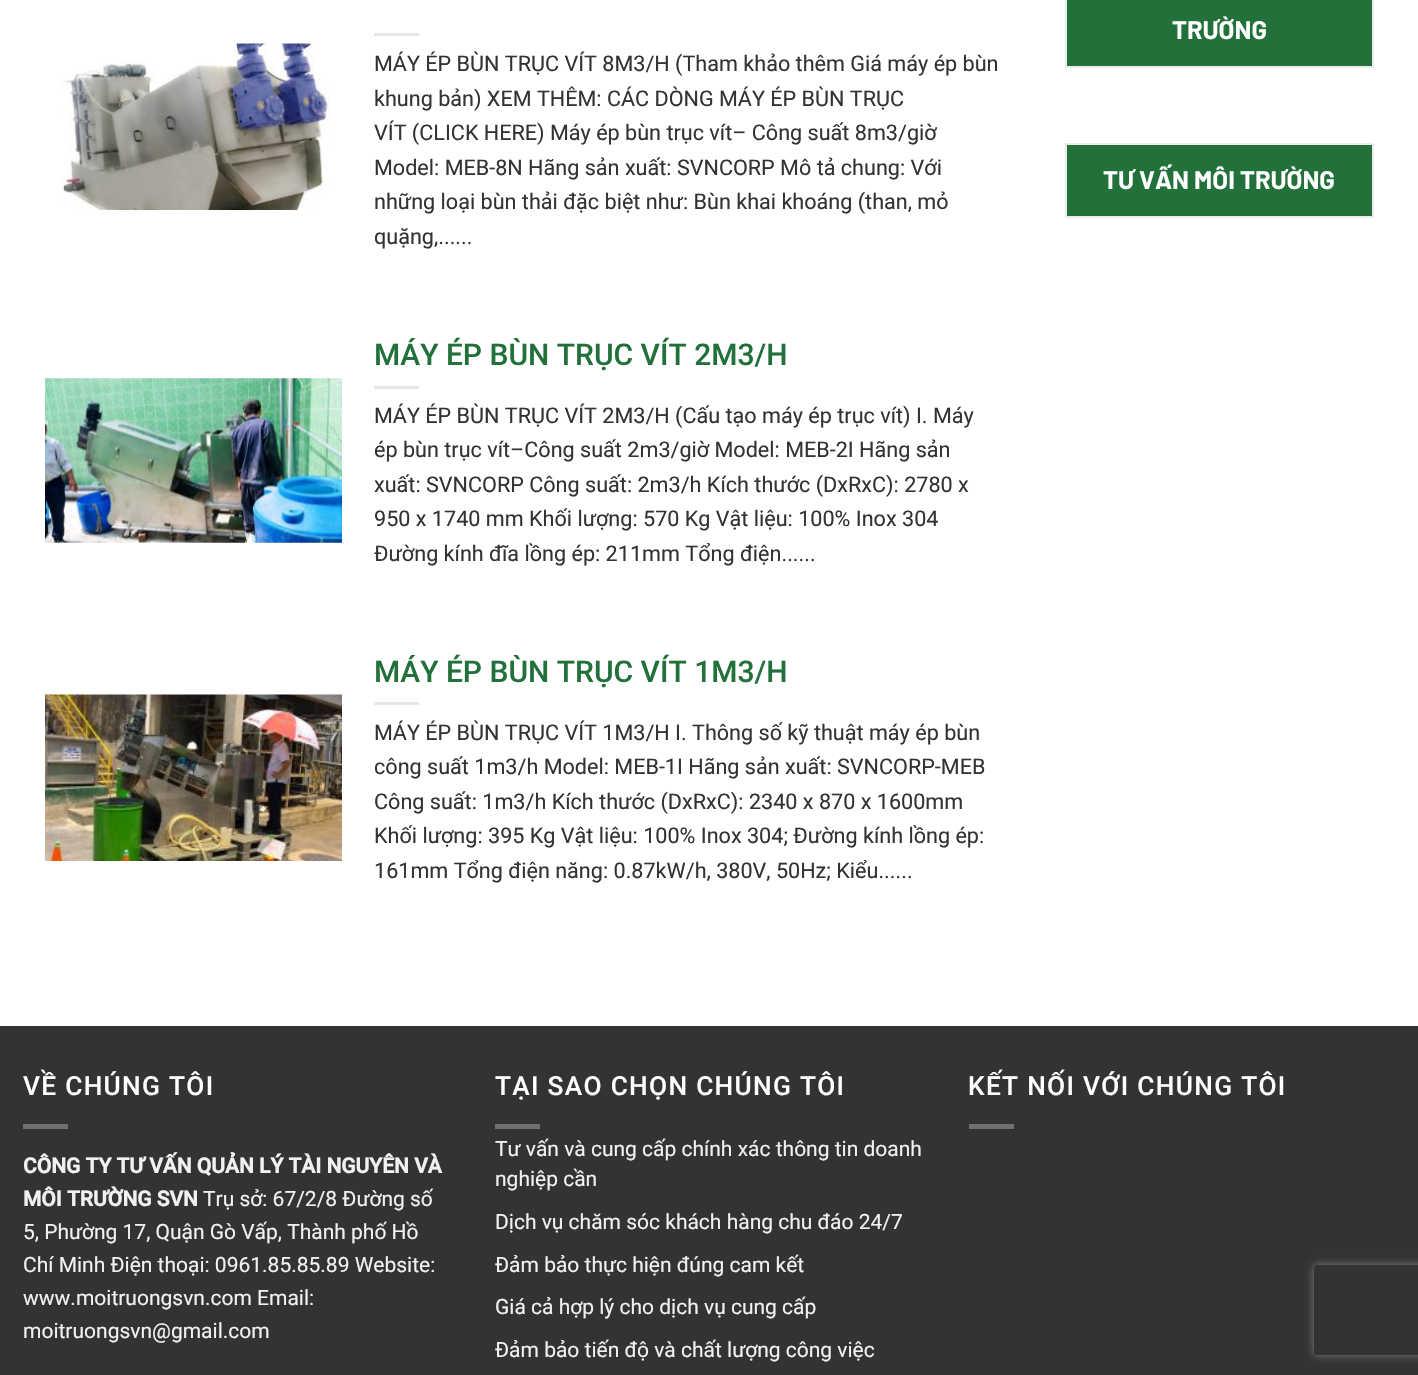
void draw(SkCanvas* canvas) {
    SkPaint paint;
    paint.setAntiAlias(true);
    auto spacedText = [&](const char* s, float x, float y, const SkFont& font, const SkPaint& ink, float letter, float word) {
        std::vector<SkGlyphID> glyphs(font.countText(s, strlen(s), SkTextEncoding::kUTF8));
        std::vector<float> xs(glyphs.size());
        font.textToGlyphs(s, strlen(s), SkTextEncoding::kUTF8, glyphs);
        font.getXPos(glyphs, xs, x);
        float extra = 0;
        for (size_t i = 0; i < glyphs.size(); i++) {
            xs[i] += extra;
            extra += letter + word * (glyphs[i] == font.unicharToGlyph(' '));
        }
        canvas->drawTextBlob(SkTextBlob::MakeFromPosHGlyphs(glyphs, xs, y, font), 0, 0, ink);
    };
    canvas->clear(0xFFFFFFFF);
    canvas->drawImageRect(SkImages::DeferredFromEncodedData(SkData::MakeFromFileName("img1.png")), SkRect::MakeXYWH(61, 43, 269, 167), SkSamplingOptions());
    paint.setColor(0xFFE6E6E6);
    canvas->drawRect(SkRect::MakeXYWH(374, 33, 45, 3), paint);
    SkFont font1(fontMgr->matchFamilyStyle("Roboto", SkFontStyle::Normal()), 21.6f);
    font1.setSubpixel(true);
    paint.setColor(0xFF333333);
    canvas->drawString("MÁY ÉP BÙN TRỤC VÍT 8M3/H (Tham khảo thêm Giá máy ép bùn", 374, 71, font1, paint);
    canvas->drawString("khung bản) XEM THÊM: CÁC DÒNG MÁY ÉP BÙN TRỤC", 374, 106, font1, paint);
    canvas->drawString("VÍT (CLICK HERE) Máy ép bùn trục vít– Công suất 8m3/giờ", 374, 140, font1, paint);
    canvas->drawString("Model: MEB-8N Hãng sản xuất: SVNCORP Mô tả chung: Với", 374, 175, font1, paint);
    canvas->drawString("những loại bùn thải đặc biệt như: Bùn khai khoáng (than, mỏ", 374, 209, font1, paint);
    canvas->drawString("quặng,......", 374, 244, font1, paint);
    canvas->drawImageRect(SkImages::DeferredFromEncodedData(SkData::MakeFromFileName("img2.png")), SkRect::MakeXYWH(45, 378, 297, 165), SkSamplingOptions());
    SkFont font2(fontMgr->matchFamilyStyle("Roboto", SkFontStyle(500, SkFontStyle::kNormal_Width, SkFontStyle::kUpright_Slant)), 30);
    font2.setSubpixel(true);
    paint.setColor(0xFF22713B);
    canvas->drawString("MÁY ÉP BÙN TRỤC VÍT 2M3/H", 374, 365, font2, paint);
    paint.setColor(0xFFE6E6E6);
    canvas->drawRect(SkRect::MakeXYWH(374, 386, 45, 3), paint);
    paint.setColor(0xFF333333);
    canvas->drawString("MÁY ÉP BÙN TRỤC VÍT 2M3/H (Cấu tạo máy ép trục vít) I. Máy", 374, 423, font1, paint);
    canvas->drawString("ép bùn trục vít–Công suất 2m3/giờ Model: MEB-2I Hãng sản", 374, 457, font1, paint);
    canvas->drawString("xuất: SVNCORP Công suất: 2m3/h Kích thước (DxRxC): 2780 x", 374, 492, font1, paint);
    canvas->drawString("950 x 1740 mm Khối lượng: 570 Kg Vật liệu: 100% Inox 304", 374, 526, font1, paint);
    canvas->drawString("Đường kính đĩa lồng ép: 211mm Tổng điện......", 374, 561, font1, paint);
    canvas->drawImageRect(SkImages::DeferredFromEncodedData(SkData::MakeFromFileName("img3.png")), SkRect::MakeXYWH(45, 694, 297, 167), SkSamplingOptions());
    paint.setColor(0xFF22713B);
    canvas->drawString("MÁY ÉP BÙN TRỤC VÍT 1M3/H", 374, 682, font2, paint);
    paint.setColor(0xFFE6E6E6);
    canvas->drawRect(SkRect::MakeXYWH(374, 702, 45, 3), paint);
    paint.setColor(0xFF333333);
    canvas->drawString("MÁY ÉP BÙN TRỤC VÍT 1M3/H I. Thông số kỹ thuật máy ép bùn", 374, 740, font1, paint);
    canvas->drawString("công suất 1m3/h Model: MEB-1I Hãng sản xuất: SVNCORP-MEB", 374, 774, font1, paint);
    canvas->drawString("Công suất: 1m3/h Kích thước (DxRxC): 2340 x 870 x 1600mm", 374, 809, font1, paint);
    canvas->drawString("Khối lượng: 395 Kg Vật liệu: 100% Inox 304; Đường kính lồng ép:", 374, 843, font1, paint);
    canvas->drawString("161mm Tổng điện năng: 0.87kW/h, 380V, 50Hz; Kiểu......", 374, 878, font1, paint);
    paint.setColor(0xFF22713B);
    canvas->drawRect(SkRect::MakeXYWH(1066, -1, 307, 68), paint);
    paint.setStyle(SkPaint::kStroke_Style);
    paint.setStrokeWidth(2);
    paint.setColor(0xFFECECEC);
    canvas->drawRect(SkRect::MakeXYWH(1066, -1, 307, 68), paint);
    SkFont font3(fontMgr->matchFamilyStyle("Barlow", SkFontStyle::Bold()), 25.5f);
    font3.setSubpixel(true);
    paint.setStyle(SkPaint::kFill_Style);
    paint.setColor(0xFFFFFFFF);
    canvas->drawString("TRƯỜNG", 1172, 39, font3, paint);
    paint.setColor(0xFF22713B);
    canvas->drawRect(SkRect::MakeXYWH(1066, 144, 307, 73), paint);
    paint.setStyle(SkPaint::kStroke_Style);
    paint.setColor(0xFFECECEC);
    canvas->drawRect(SkRect::MakeXYWH(1066, 144, 307, 73), paint);
    paint.setStyle(SkPaint::kFill_Style);
    paint.setColor(0xFFFFFFFF);
    canvas->drawString("TƯ VẤN MÔI TRƯỜNG", 1103, 189, font3, paint);
    paint.setColor(0xFF333333);
    canvas->drawRect(SkRect::MakeXYWH(0, 1026, 1418, 349), paint);
    SkFont font4(fontMgr->matchFamilyStyle("Roboto", SkFontStyle(500, SkFontStyle::kNormal_Width, SkFontStyle::kUpright_Slant)), 26.25f);
    font4.setSubpixel(true);
    paint.setColor(0xFFFFFFFF);
    spacedText("VỀ CHÚNG TÔI", 23, 1095, font4, paint, 1.3f, 0);
    paint.setColor(0xFF707070);
    canvas->drawRect(SkRect::MakeXYWH(23, 1124, 45, 5), paint);
    SkFont font5(fontMgr->matchFamilyStyle("Roboto", SkFontStyle::Bold()), 21);
    font5.setSubpixel(true);
    paint.setColor(0xFFF1F1F1);
    canvas->drawString("CÔNG TY TƯ VẤN QUẢN LÝ TÀI NGUYÊN VÀ", 23, 1173, font5, paint);
    canvas->drawString("MÔI TRƯỜNG SVN", 23, 1206, font5, paint);
    SkFont font6(fontMgr->matchFamilyStyle("Roboto", SkFontStyle::Normal()), 21);
    font6.setSubpixel(true);
    canvas->drawString("Trụ sở: 67/2/8 Đường số", 203, 1206, font6, paint);
    canvas->drawString("5, Phường 17, Quận Gò Vấp, Thành phố Hồ", 23, 1239, font6, paint);
    canvas->drawString("Chí Minh Điện thoại: 0961.85.85.89 Website:", 23, 1272, font6, paint);
    canvas->drawString("www.moitruongsvn.com Email:", 23, 1305, font6, paint);
    canvas->drawString("moitruongsvn@gmail.com", 23, 1338, font6, paint);
    paint.setColor(0xFFFFFFFF);
    spacedText("TẠI SAO CHỌN CHÚNG TÔI", 495, 1095, font4, paint, 1.3f, 0);
    paint.setColor(0xFF707070);
    canvas->drawRect(SkRect::MakeXYWH(495, 1124, 45, 5), paint);
    paint.setColor(0xFFF1F1F1);
    canvas->drawString("Tư vấn và cung cấp chính xác thông tin doanh", 495, 1156, font6, paint);
    canvas->drawString("nghiệp cần", 495, 1186, font6, paint);
    canvas->drawString("Dịch vụ chăm sóc khách hàng chu đáo 24/7", 495, 1229, font6, paint);
    canvas->drawString("Đảm bảo thực hiện đúng cam kết", 495, 1272, font6, paint);
    canvas->drawString("Giá cả hợp lý cho dịch vụ cung cấp", 495, 1314, font6, paint);
    canvas->drawString("Đảm bảo tiến độ và chất lượng công việc", 495, 1357, font6, paint);
    paint.setColor(0xFFFFFFFF);
    spacedText("KẾT NỐI VỚI CHÚNG TÔI", 968, 1095, font4, paint, 1.3f, 0);
    paint.setColor(0xFF707070);
    canvas->drawRect(SkRect::MakeXYWH(969, 1124, 45, 5), paint);
    canvas->save();
    canvas->clipPath(SkPathBuilder(SkPathFillType::kEvenOdd).moveTo(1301, 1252).lineTo(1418, 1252).lineTo(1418, 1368).lineTo(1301, 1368).close().moveTo(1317, 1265).lineTo(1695, 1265).cubicTo(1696.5f, 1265, 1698, 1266.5f, 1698, 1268).lineTo(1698, 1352).cubicTo(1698, 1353.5f, 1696.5f, 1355, 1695, 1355).lineTo(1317, 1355).cubicTo(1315.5f, 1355, 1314, 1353.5f, 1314, 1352).lineTo(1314, 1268).cubicTo(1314, 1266.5f, 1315.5f, 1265, 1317, 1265).close().detach(), true);
    paint.setColor(0xFF808080);
    paint.setMaskFilter(SkMaskFilter::MakeBlur(kNormal_SkBlurStyle, 4));
    canvas->drawRoundRect(SkRect::MakeXYWH(1314, 1265, 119, 90), 3, 3, paint);
    paint.setMaskFilter(nullptr);
    canvas->restore();
}
